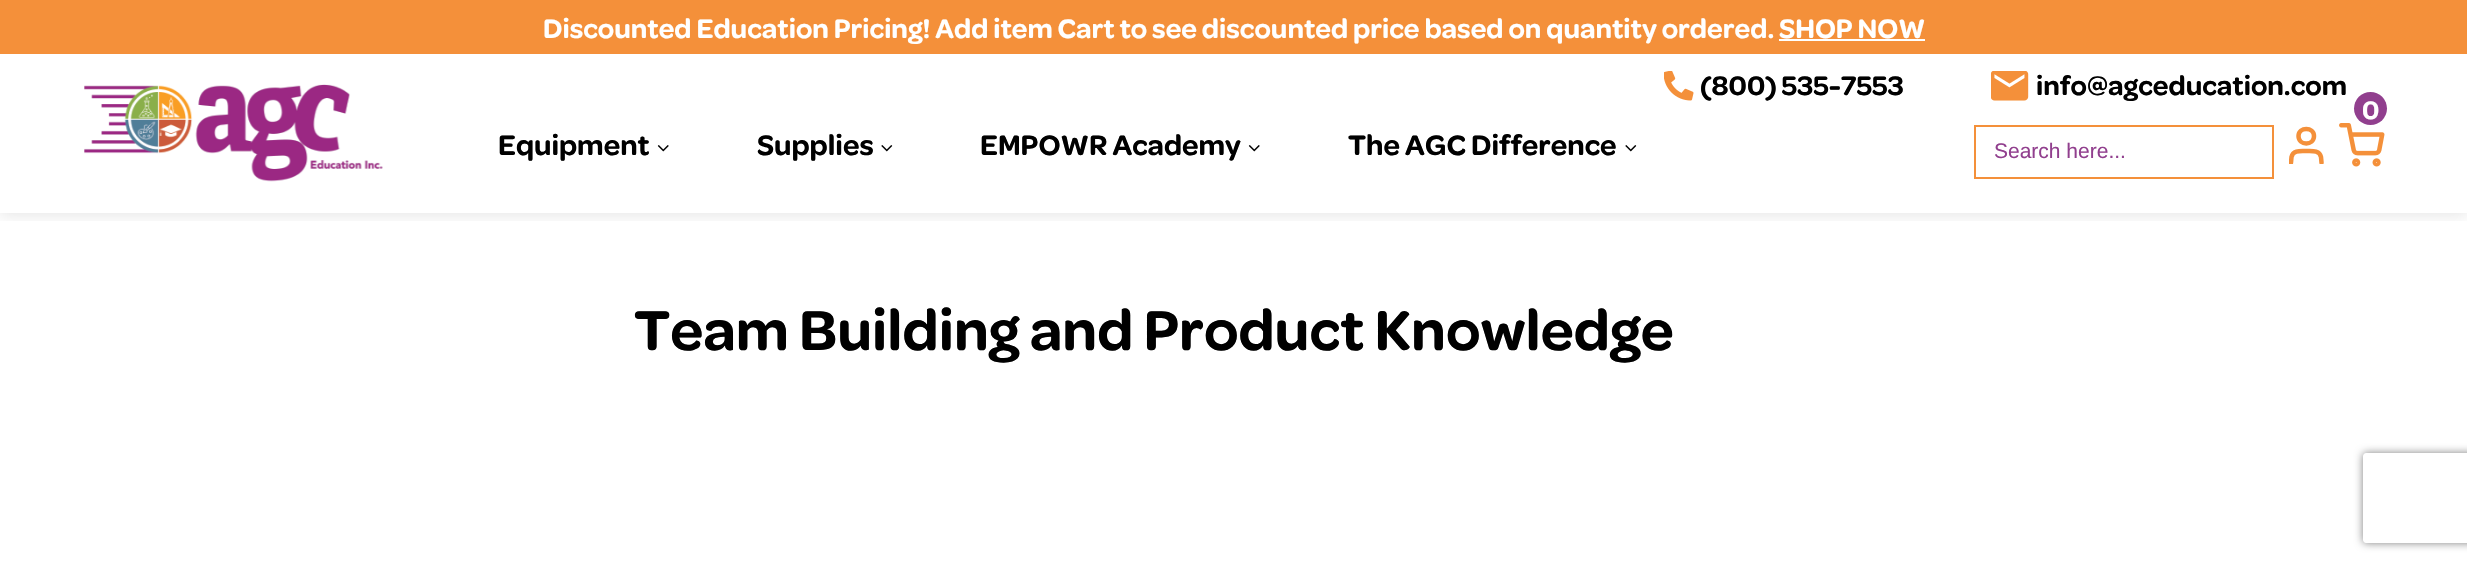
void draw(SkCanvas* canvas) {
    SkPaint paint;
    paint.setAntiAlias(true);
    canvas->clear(0xFFFFFFFF);
    canvas->save();
    canvas->clipRect(SkRect::MakeXYWH(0, 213, 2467, 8));
    paint.setColor(0x1A000000);
    paint.setMaskFilter(SkMaskFilter::MakeBlur(kNormal_SkBlurStyle, 7.5f));
    canvas->drawRect(SkRect::MakeXYWH(0, 2, 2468, 213), paint);
    paint.setMaskFilter(nullptr);
    canvas->restore();
    paint.setColor(0xFFF4903A);
    canvas->drawRect(SkRect::MakeXYWH(0, 0, 2467, 54), paint);
    SkFont font1(fontMgr->matchFamilyStyle("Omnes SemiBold", SkFontStyle(600, SkFontStyle::kNormal_Width, SkFontStyle::kUpright_Slant)), 28.5f);
    font1.setSubpixel(true);
    paint.setColor(0xFFFFFFFF);
    canvas->drawString("Discounted Education Pricing! Add item Cart to see discounted price based on quantity ordered. SHOP NOW", 543, 38, font1, paint);
    canvas->drawRect(SkRect::MakeXYWH(1779, 39, 146, 2), paint);
    canvas->drawImageRect(SkImages::DeferredFromEncodedData(SkData::MakeFromFileName("img1.png")), SkRect::MakeXYWH(84, 84, 299, 98), SkSamplingOptions());
    SkFont font2(fontMgr->matchFamilyStyle("Omnes SemiBold", SkFontStyle(600, SkFontStyle::kNormal_Width, SkFontStyle::kUpright_Slant)), 30);
    font2.setSubpixel(true);
    paint.setColor(0xFF000000);
    canvas->drawString("Equipment", 498, 155, font2, paint);
    canvas->drawImageRect(SkImages::DeferredFromEncodedData(SkData::MakeFromFileName("img2.png")), SkRect::MakeXYWH(657, 145, 12, 7), SkSamplingOptions());
    canvas->drawString("Supplies", 757, 155, font2, paint);
    canvas->drawImageRect(SkImages::DeferredFromEncodedData(SkData::MakeFromFileName("img3.png")), SkRect::MakeXYWH(881, 145, 12, 7), SkSamplingOptions());
    canvas->drawString("EMPOWR Academy", 980, 155, font2, paint);
    canvas->drawImageRect(SkImages::DeferredFromEncodedData(SkData::MakeFromFileName("img2.png")), SkRect::MakeXYWH(1248, 145, 12, 7), SkSamplingOptions());
    canvas->drawString("The AGC Difference", 1348, 155, font2, paint);
    canvas->drawImageRect(SkImages::DeferredFromEncodedData(SkData::MakeFromFileName("img3.png")), SkRect::MakeXYWH(1625, 145, 12, 7), SkSamplingOptions());
    canvas->drawImageRect(SkImages::DeferredFromEncodedData(SkData::MakeFromFileName("img4.png")), SkRect::MakeXYWH(1664, 71, 30, 30), SkSamplingOptions());
    canvas->drawString("(800) 535-7553", 1700, 95, font1, paint);
    canvas->drawImageRect(SkImages::DeferredFromEncodedData(SkData::MakeFromFileName("img5.png")), SkRect::MakeXYWH(1991, 71, 38, 30), SkSamplingOptions());
    canvas->drawString("info@agceducation.com", 2036, 95, font1, paint);
    canvas->drawImageRect(SkImages::DeferredFromEncodedData(SkData::MakeFromFileName("img6.png")), SkRect::MakeXYWH(2339, 123, 46, 44), SkSamplingOptions());
    paint.setColor(0xFF913F8E);
    canvas->drawCircle(2370.5f, 108.5f, 16.5f, paint);
    SkFont font3(fontMgr->matchFamilyStyle("Omnes SemiBold", SkFontStyle(600, SkFontStyle::kNormal_Width, SkFontStyle::kUpright_Slant)), 27);
    font3.setSubpixel(true);
    paint.setColor(0xFFFFFFFF);
    canvas->drawString("0", 2362, 119, font3, paint);
    paint.setStyle(SkPaint::kStroke_Style);
    paint.setStrokeWidth(2);
    paint.setColor(0xFFF4903A);
    canvas->drawRect(SkRect::MakeXYWH(1975, 126, 298, 52), paint);
    SkFont font4(fontMgr->matchFamilyStyle("Liberation Sans", SkFontStyle::Normal()), 21);
    font4.setSubpixel(true);
    paint.setStyle(SkPaint::kFill_Style);
    paint.setColor(0xFF913F8E);
    canvas->drawString("Search here...", 1994, 158, font4, paint);
    paint.setStyle(SkPaint::kStroke_Style);
    paint.setStrokeWidth(4.5f);
    paint.setStrokeCap(SkPaint::kRound_Cap);
    paint.setStrokeJoin(SkPaint::kRound_Join);
    paint.setColor(0xFFF4903A);
    canvas->drawPath(SkPathBuilder().moveTo(2314, 136).cubicTo(2314, 146, 2298.5f, 146, 2298.5f, 136).cubicTo(2298.5f, 126.5f, 2314, 126.5f, 2314, 136).close().detach(), paint);
    canvas->save();
    canvas->clipRect(SkRect::MakeXYWH(2289, 126, 35, 38));
    canvas->drawPath(SkPathBuilder().moveTo(2321.5f, 162.5f).lineTo(2321, 157).cubicTo(2319.5f, 150, 2312, 151, 2306, 151).cubicTo(2300.5f, 151, 2293, 150, 2291.5f, 157).lineTo(2291, 162.5f).detach(), paint);
    canvas->restore();
    SkFont font5(fontMgr->matchFamilyStyle("Omnes SemiBold", SkFontStyle(600, SkFontStyle::kNormal_Width, SkFontStyle::kUpright_Slant)), 60);
    font5.setSubpixel(true);
    paint.setStyle(SkPaint::kFill_Style);
    paint.setColor(0xFF000000);
    canvas->drawString("Team Building and Product Knowledge", 634, 350, font5, paint);
    canvas->save();
    canvas->clipPath(SkPathBuilder(SkPathFillType::kEvenOdd).moveTo(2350, 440).lineTo(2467, 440).lineTo(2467, 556).lineTo(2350, 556).close().moveTo(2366, 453).lineTo(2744, 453).cubicTo(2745.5f, 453, 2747, 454.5f, 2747, 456).lineTo(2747, 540).cubicTo(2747, 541.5f, 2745.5f, 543, 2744, 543).lineTo(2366, 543).cubicTo(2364.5f, 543, 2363, 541.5f, 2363, 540).lineTo(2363, 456).cubicTo(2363, 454.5f, 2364.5f, 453, 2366, 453).close().detach(), true);
    paint.setColor(0xFF808080);
    paint.setMaskFilter(SkMaskFilter::MakeBlur(kNormal_SkBlurStyle, 4));
    canvas->drawRoundRect(SkRect::MakeXYWH(2363, 453, 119, 90), 3, 3, paint);
    paint.setMaskFilter(nullptr);
    canvas->restore();
}
